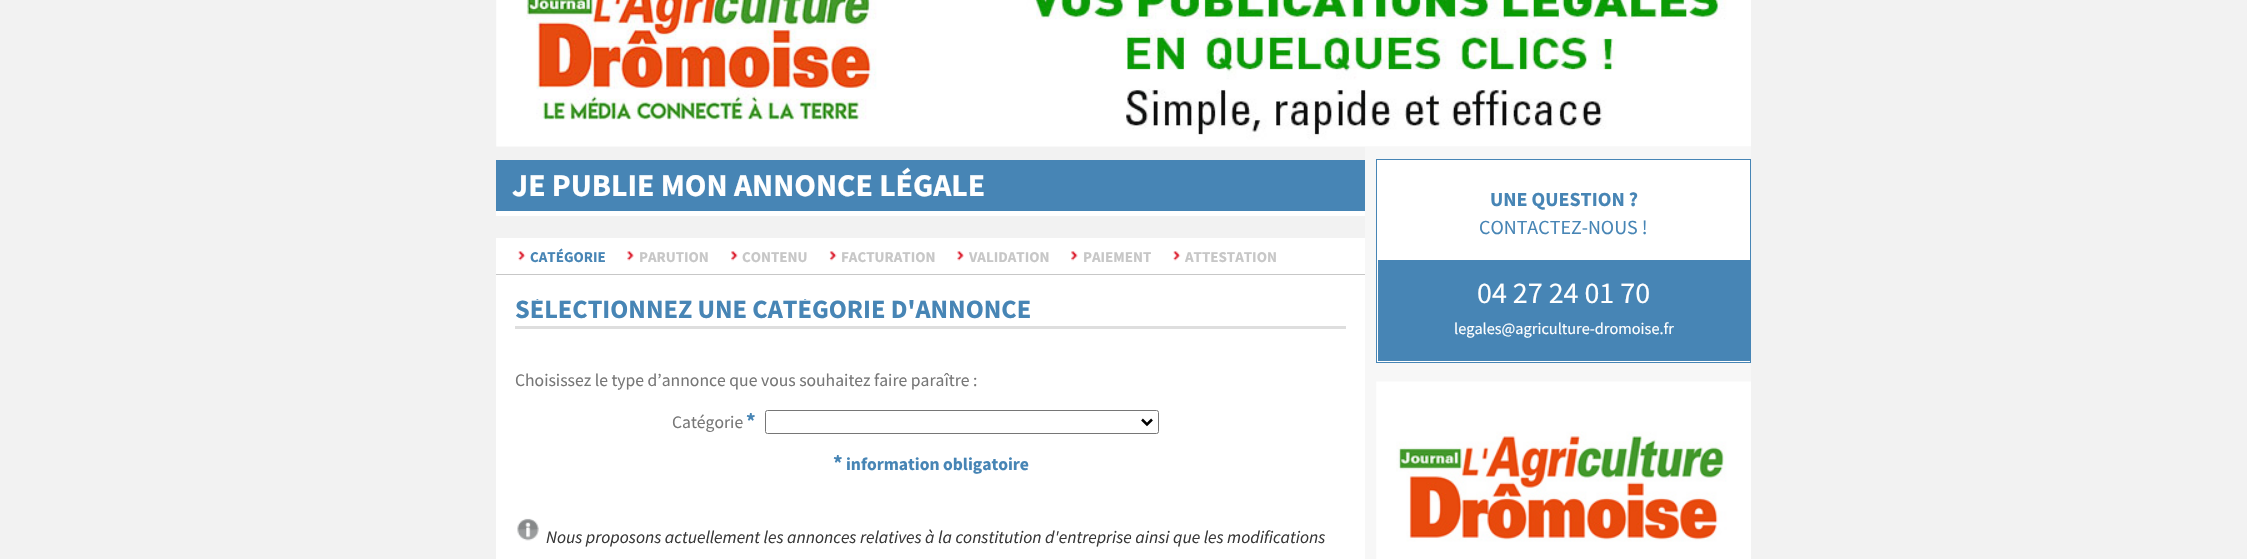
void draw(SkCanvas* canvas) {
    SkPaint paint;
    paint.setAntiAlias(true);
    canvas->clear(0xFFF2F2F2);
    canvas->drawImageRect(SkImages::DeferredFromEncodedData(SkData::MakeFromFileName("img1.png")), SkRect::MakeXYWH(496, 0, 1255, 147), SkSamplingOptions());
    paint.setColor(0xFF4785B5);
    canvas->drawRect(SkRect::MakeXYWH(496, 160, 869, 51), paint);
    paint.setColor(0xFFFFFFFF);
    canvas->drawRect(SkRect::MakeXYWH(496, 211, 869, 5), paint);
    SkFont font1(fontMgr->matchFamilyStyle("Source Sans Pro", SkFontStyle::Bold()), 31.7f);
    font1.setSubpixel(true);
    canvas->drawString("JE PUBLIE MON ANNONCE LÉGALE", 512, 196, font1, paint);
    canvas->drawRect(SkRect::MakeXYWH(496, 238, 869, 321), paint);
    paint.setColor(0xFFC7C7C7);
    canvas->drawRect(SkRect::MakeXYWH(496, 274, 869, 1), paint);
    canvas->drawImageRect(SkImages::DeferredFromEncodedData(SkData::MakeFromFileName("img2.png")), SkRect::MakeXYWH(518, 251, 8, 10), SkSamplingOptions());
    SkFont font2(fontMgr->matchFamilyStyle("Source Sans Pro", SkFontStyle::Bold()), 15);
    font2.setSubpixel(true);
    paint.setColor(0xFF4785B5);
    canvas->drawString("CATÉGORIE", 530, 262, font2, paint);
    canvas->drawImageRect(SkImages::DeferredFromEncodedData(SkData::MakeFromFileName("img3.png")), SkRect::MakeXYWH(627, 251, 7, 10), SkSamplingOptions());
    paint.setColor(0xFFC7C7C7);
    canvas->drawString("PARUTION", 639, 262, font2, paint);
    canvas->drawImageRect(SkImages::DeferredFromEncodedData(SkData::MakeFromFileName("img4.png")), SkRect::MakeXYWH(731, 251, 7, 10), SkSamplingOptions());
    canvas->drawString("CONTENU", 742, 262, font2, paint);
    canvas->drawImageRect(SkImages::DeferredFromEncodedData(SkData::MakeFromFileName("img5.png")), SkRect::MakeXYWH(829, 251, 8, 10), SkSamplingOptions());
    canvas->drawString("FACTURATION", 841, 262, font2, paint);
    canvas->drawImageRect(SkImages::DeferredFromEncodedData(SkData::MakeFromFileName("img6.png")), SkRect::MakeXYWH(957, 251, 7, 10), SkSamplingOptions());
    canvas->drawString("VALIDATION", 969, 262, font2, paint);
    canvas->drawImageRect(SkImages::DeferredFromEncodedData(SkData::MakeFromFileName("img7.png")), SkRect::MakeXYWH(1071, 251, 7, 10), SkSamplingOptions());
    canvas->drawString("PAIEMENT", 1083, 262, font2, paint);
    canvas->drawImageRect(SkImages::DeferredFromEncodedData(SkData::MakeFromFileName("img8.png")), SkRect::MakeXYWH(1173, 251, 8, 10), SkSamplingOptions());
    canvas->drawString("ATTESTATION", 1185, 262, font2, paint);
    paint.setColor(0xFFDEDEDE);
    canvas->drawRect(SkRect::MakeXYWH(515, 326, 831, 3), paint);
    canvas->save();
    canvas->clipRect(SkRect::MakeXYWH(515, 299, 831, 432));
    SkFont font3(fontMgr->matchFamilyStyle("Source Sans Pro", SkFontStyle::Bold()), 26.4f);
    font3.setSubpixel(true);
    paint.setColor(0xFF4785B5);
    canvas->drawString("SÉLECTIONNEZ UNE CATÉGORIE D'ANNONCE", 515, 318, font3, paint);
    canvas->restore();
    SkFont font4(fontMgr->matchFamilyStyle("Source Sans Pro", SkFontStyle::Normal()), 17.6f);
    font4.setSubpixel(true);
    paint.setColor(0xFF777777);
    canvas->drawString("Choisissez le type d’annonce que vous souhaitez faire paraître :", 515, 386, font4, paint);
    canvas->drawString("Catégorie", 672, 428, font4, paint);
    SkFont font5(fontMgr->matchFamilyStyle("Source Sans Pro", SkFontStyle::Bold()), 21);
    font5.setSubpixel(true);
    paint.setColor(0xFF4785B5);
    canvas->drawString("*", 746, 428, font5, paint);
    paint.setStyle(SkPaint::kStroke_Style);
    paint.setStrokeWidth(1);
    paint.setColor(0xFF767676);
    canvas->drawRoundRect(SkRect::MakeXYWH(765.5f, 410.5f, 393, 23), 2, 2, paint);
    paint.setStrokeWidth(2.5f);
    paint.setColor(0xFF000000);
    canvas->drawPath(SkPathBuilder().moveTo(1142, 419.5f).lineTo(1147, 424.5f).lineTo(1152, 419.5f).detach(), paint);
    paint.setStyle(SkPaint::kFill_Style);
    paint.setColor(0xFF4785B5);
    canvas->drawString("*", 833, 470, font5, paint);
    SkFont font6(fontMgr->matchFamilyStyle("Source Sans Pro", SkFontStyle::Bold()), 17.6f);
    font6.setSubpixel(true);
    canvas->drawString("information obligatoire", 846, 470, font6, paint);
    canvas->drawImageRect(SkImages::DeferredFromEncodedData(SkData::MakeFromFileName("img9.png")), SkRect::MakeXYWH(517, 518, 22, 23), SkSamplingOptions());
    SkFont font7(fontMgr->matchFamilyStyle("Source Sans Pro", SkFontStyle::Italic()), 17.6f);
    font7.setSubpixel(true);
    paint.setColor(0xFF383838);
    canvas->drawString("Nous proposons actuellement les annonces relatives à la constitution d'entreprise ainsi que les modifications", 546, 543, font7, paint);
    paint.setColor(0xFFF7F7F7);
    canvas->drawRect(SkRect::MakeXYWH(1365, 147, 386, 412), paint);
    paint.setColor(0xFFFFFFFF);
    canvas->drawRect(SkRect::MakeXYWH(1376.5f, 159.5f, 374, 203), paint);
    paint.setStyle(SkPaint::kStroke_Style);
    paint.setStrokeWidth(1);
    paint.setColor(0xFF4785B5);
    canvas->drawRect(SkRect::MakeXYWH(1376.5f, 159.5f, 374, 203), paint);
    SkFont font8(fontMgr->matchFamilyStyle("Source Sans Pro", SkFontStyle::Bold()), 20);
    font8.setSubpixel(true);
    paint.setStyle(SkPaint::kFill_Style);
    canvas->drawString("UNE QUESTION ?", 1490, 206, font8, paint);
    SkFont font9(fontMgr->matchFamilyStyle("Source Sans Pro", SkFontStyle::Normal()), 20);
    font9.setSubpixel(true);
    canvas->drawString("CONTACTEZ-NOUS !", 1479, 234, font9, paint);
    canvas->drawRect(SkRect::MakeXYWH(1378, 260, 372, 101), paint);
    SkFont font10(fontMgr->matchFamilyStyle("Source Sans Pro", SkFontStyle::Normal()), 30);
    font10.setSubpixel(true);
    paint.setColor(0xFFFFFFFF);
    canvas->drawString("04 27 24 01 70", 1477, 303, font10, paint);
    SkFont font11(fontMgr->matchFamilyStyle("Source Sans Pro", SkFontStyle::Normal()), 16.25f);
    font11.setSubpixel(true);
    canvas->drawString("legales@agriculture-dromoise.fr", 1454, 334, font11, paint);
    canvas->drawImageRect(SkImages::DeferredFromEncodedData(SkData::MakeFromFileName("img10.png")), SkRect::MakeXYWH(1376, 381, 375, 178), SkSamplingOptions());
}
